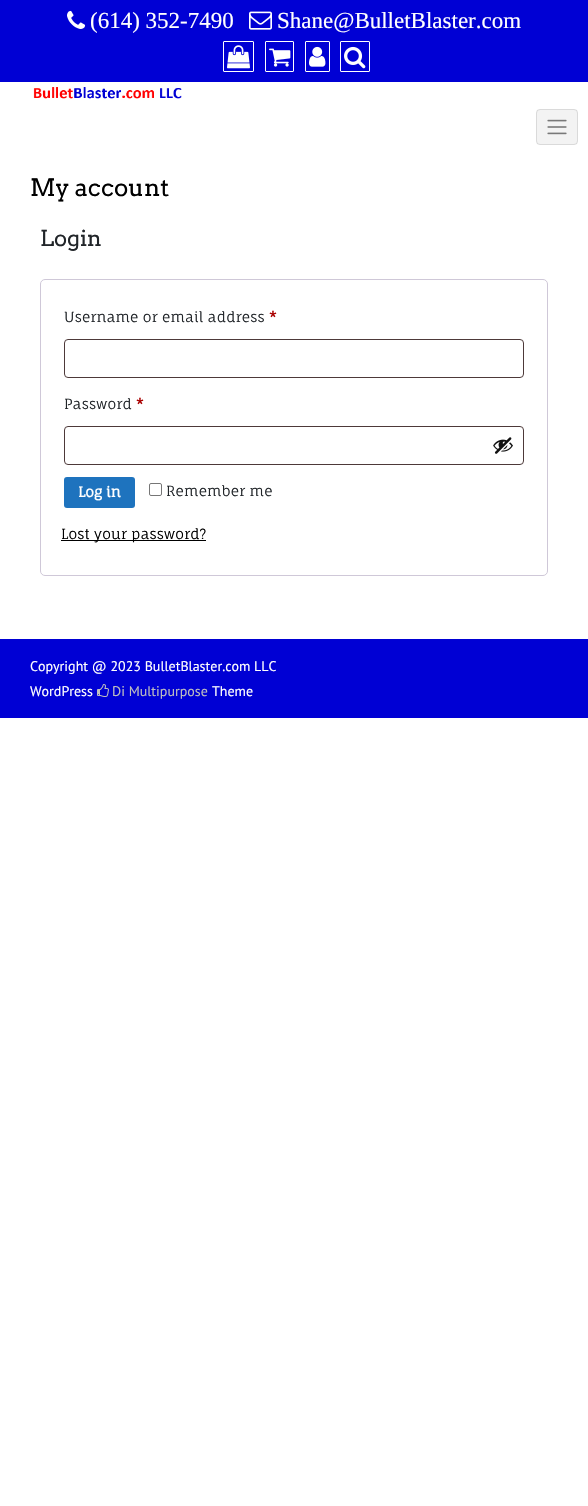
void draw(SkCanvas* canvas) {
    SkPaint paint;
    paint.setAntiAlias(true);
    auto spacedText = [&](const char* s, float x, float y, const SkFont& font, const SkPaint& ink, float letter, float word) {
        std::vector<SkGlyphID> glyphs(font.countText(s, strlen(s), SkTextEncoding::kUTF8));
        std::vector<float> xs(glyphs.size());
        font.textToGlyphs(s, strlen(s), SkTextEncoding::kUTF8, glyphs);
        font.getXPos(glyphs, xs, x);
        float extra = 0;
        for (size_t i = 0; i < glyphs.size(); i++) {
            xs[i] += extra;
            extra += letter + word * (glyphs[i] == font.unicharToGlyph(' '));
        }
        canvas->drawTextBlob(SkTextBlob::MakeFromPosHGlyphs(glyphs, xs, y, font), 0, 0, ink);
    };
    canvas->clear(0xFFFFFFFF);
    paint.setColor(0xFF0000D4);
    canvas->drawRect(SkRect::MakeXYWH(0, 0, 588, 82), paint);
    canvas->drawImageRect(SkImages::DeferredFromEncodedData(SkData::MakeFromFileName("img1.png")), SkRect::MakeXYWH(67, 10, 19, 19), SkSamplingOptions());
    SkFont font1(fontMgr->matchFamilyStyle("Liberation Serif", SkFontStyle::Normal()), 23);
    font1.setSubpixel(true);
    paint.setColor(0xFFFFFFFF);
    canvas->drawString("(614) 352-7490", 90, 28, font1, paint);
    canvas->drawImageRect(SkImages::DeferredFromEncodedData(SkData::MakeFromFileName("img2.png")), SkRect::MakeXYWH(249, 11, 23, 19), SkSamplingOptions());
    canvas->drawString("Shane@BulletBlaster.com", 277, 28, font1, paint);
    paint.setStyle(SkPaint::kStroke_Style);
    paint.setStrokeWidth(1);
    canvas->drawRoundRect(SkRect::MakeXYWH(223.5f, 41.5f, 30, 30), 0.5f, 0.5f, paint);
    canvas->drawImageRect(SkImages::DeferredFromEncodedData(SkData::MakeFromFileName("img3.png")), SkRect::MakeXYWH(227, 45, 23, 24), SkSamplingOptions());
    canvas->drawRoundRect(SkRect::MakeXYWH(265.5f, 41.5f, 28, 30), 0.5f, 0.5f, paint);
    canvas->drawImageRect(SkImages::DeferredFromEncodedData(SkData::MakeFromFileName("img4.png")), SkRect::MakeXYWH(269, 48, 22, 19), SkSamplingOptions());
    canvas->drawRoundRect(SkRect::MakeXYWH(305.5f, 41.5f, 24, 30), 0.5f, 0.5f, paint);
    canvas->drawImageRect(SkImages::DeferredFromEncodedData(SkData::MakeFromFileName("img5.png")), SkRect::MakeXYWH(309, 46, 17, 21), SkSamplingOptions());
    canvas->drawRoundRect(SkRect::MakeXYWH(340.5f, 41.5f, 29, 30), 0.5f, 0.5f, paint);
    canvas->drawImageRect(SkImages::DeferredFromEncodedData(SkData::MakeFromFileName("img6.png")), SkRect::MakeXYWH(344, 46, 22, 23), SkSamplingOptions());
    canvas->drawImageRect(SkImages::DeferredFromEncodedData(SkData::MakeFromFileName("img7.png")), SkRect::MakeXYWH(33, 87, 149, 12), SkSamplingOptions());
    paint.setStyle(SkPaint::kFill_Style);
    paint.setColor(0xFFF3F3F3);
    canvas->drawRoundRect(SkRect::MakeXYWH(536, 109, 42, 36), 4, 4, paint);
    paint.setStyle(SkPaint::kStroke_Style);
    paint.setColor(0x1A000000);
    canvas->drawRoundRect(SkRect::MakeXYWH(536.5f, 109.5f, 41, 35), 3.5f, 3.5f, paint);
    canvas->drawImageRect(SkImages::DeferredFromEncodedData(SkData::MakeFromFileName("img8.png")), SkRect::MakeXYWH(547, 119, 20, 16), SkSamplingOptions());
    SkFont font2(fontMgr->matchFamilyStyle("Arvo", SkFontStyle::Normal()), 24);
    font2.setSubpixel(true);
    paint.setStyle(SkPaint::kFill_Style);
    paint.setColor(0xFF000000);
    canvas->drawString("My account", 30, 196, font2, paint);
    SkFont font3(fontMgr->matchFamilyStyle("Arvo", SkFontStyle::Normal()), 22);
    font3.setSubpixel(true);
    paint.setColor(0xFF212529);
    canvas->drawString("Login", 40, 246, font3, paint);
    paint.setStyle(SkPaint::kStroke_Style);
    paint.setColor(0xFFCFC8D8);
    canvas->drawRoundRect(SkRect::MakeXYWH(40.5f, 279.5f, 507, 296), 4.5f, 4.5f, paint);
    SkFont font4(fontMgr->matchFamilyStyle("Fauna One", SkFontStyle::Normal()), 14);
    font4.setSubpixel(true);
    paint.setStyle(SkPaint::kFill_Style);
    paint.setColor(0xFF212529);
    spacedText("Username or email address", 64, 322, font4, paint, 0.2f, 0);
    SkFont font5(fontMgr->matchFamilyStyle("Fauna One", SkFontStyle::Bold()), 14);
    font5.setSubpixel(true);
    paint.setColor(0xFFAA0000);
    spacedText("*", 269, 322, font5, paint, 0.2f, 0);
    paint.setStyle(SkPaint::kStroke_Style);
    paint.setColor(0xFF4D3939);
    canvas->drawRoundRect(SkRect::MakeXYWH(64.5f, 339.5f, 459, 38), 3.5f, 3.5f, paint);
    paint.setStyle(SkPaint::kFill_Style);
    paint.setColor(0xFF212529);
    spacedText("Password", 64, 409, font4, paint, 0.2f, 0);
    paint.setColor(0xFFAA0000);
    spacedText("*", 136, 409, font5, paint, 0.2f, 0);
    paint.setStyle(SkPaint::kStroke_Style);
    paint.setColor(0xFF4D3939);
    canvas->drawRoundRect(SkRect::MakeXYWH(64.5f, 426.5f, 459, 38), 3.5f, 3.5f, paint);
    canvas->drawImageRect(SkImages::DeferredFromEncodedData(SkData::MakeFromFileName("img9.png")), SkRect::MakeXYWH(493, 437, 20, 17), SkSamplingOptions());
    paint.setStyle(SkPaint::kFill_Style);
    paint.setColor(0xFF1E73BE);
    canvas->drawRoundRect(SkRect::MakeXYWH(64, 477, 71, 31), 3, 3, paint);
    paint.setColor(0xFFFFFFFF);
    canvas->drawString("Log in", 78, 497, font5, paint);
    paint.setStyle(SkPaint::kStroke_Style);
    paint.setColor(0xFF767676);
    canvas->drawRoundRect(SkRect::MakeXYWH(149.5f, 483.5f, 12, 12), 1.5f, 1.5f, paint);
    paint.setStyle(SkPaint::kFill_Style);
    paint.setColor(0xFF212529);
    spacedText("Remember me", 166, 496, font4, paint, 0.2f, 0);
    paint.setColor(0xFF000000);
    canvas->drawRect(SkRect::MakeXYWH(61, 540, 145, 1), paint);
    spacedText("Lost your password?", 61, 539, font4, paint, 0.2f, 0);
    paint.setColor(0xFF0000D4);
    canvas->drawRect(SkRect::MakeXYWH(0, 639, 588, 79), paint);
    SkFont font6(fontMgr->matchFamilyStyle("PT Sans", SkFontStyle::Normal()), 14);
    font6.setSubpixel(true);
    paint.setColor(0xFFFFFFFF);
    canvas->drawString("Copyright @ 2023 BulletBlaster.com LLC", 30, 671, font6, paint);
    canvas->drawString("WordPress", 30, 696, font6, paint);
    canvas->drawImageRect(SkImages::DeferredFromEncodedData(SkData::MakeFromFileName("img10.png")), SkRect::MakeXYWH(97, 684, 12, 13), SkSamplingOptions());
    paint.setColor(0xFFBFBFBF);
    canvas->drawString("Di Multipurpose", 112, 696, font6, paint);
    paint.setColor(0xFFFFFFFF);
    canvas->drawString("Theme", 212, 696, font6, paint);
}
